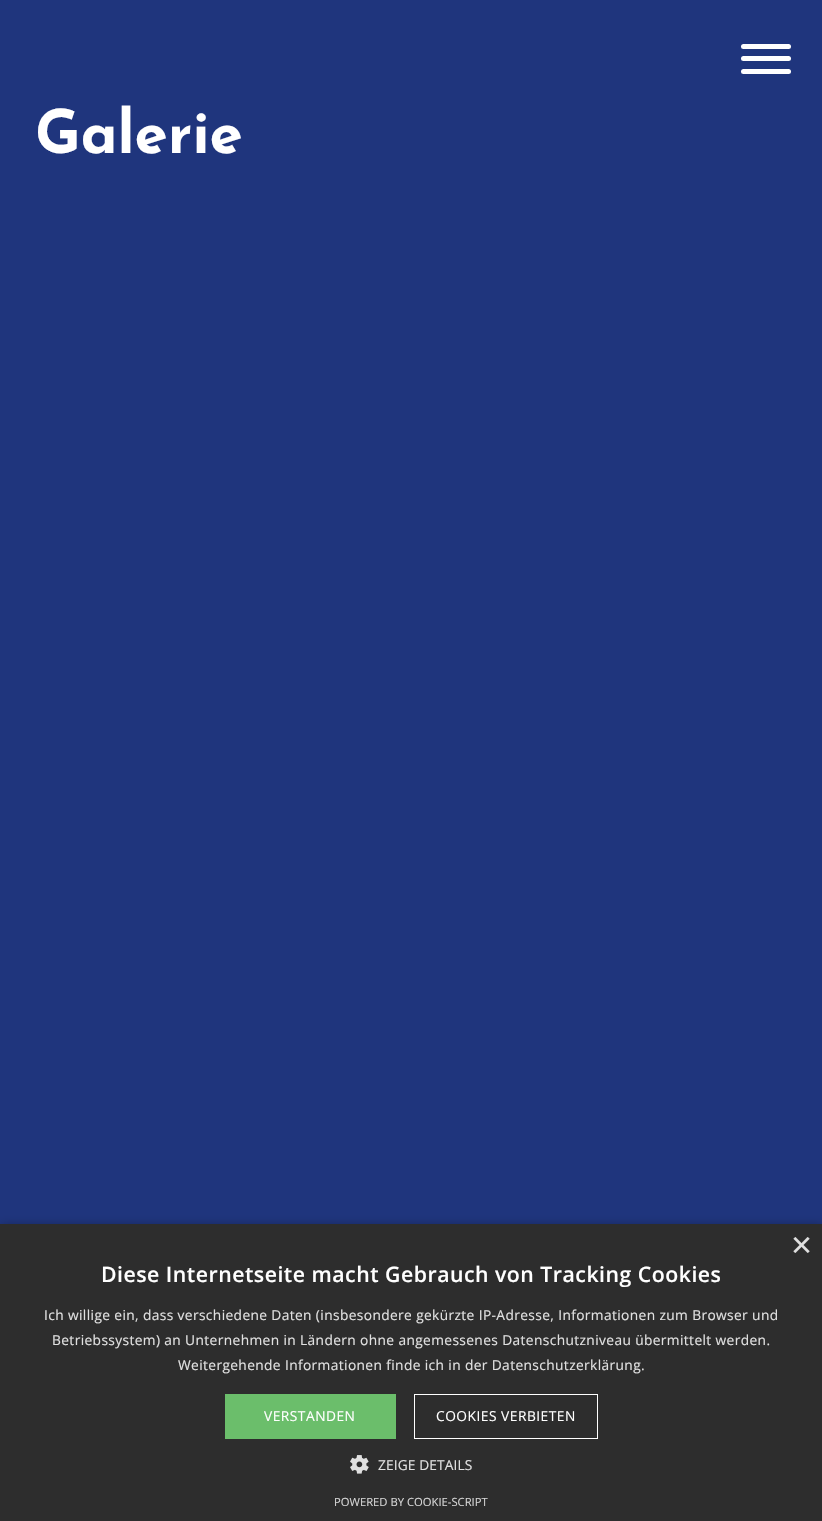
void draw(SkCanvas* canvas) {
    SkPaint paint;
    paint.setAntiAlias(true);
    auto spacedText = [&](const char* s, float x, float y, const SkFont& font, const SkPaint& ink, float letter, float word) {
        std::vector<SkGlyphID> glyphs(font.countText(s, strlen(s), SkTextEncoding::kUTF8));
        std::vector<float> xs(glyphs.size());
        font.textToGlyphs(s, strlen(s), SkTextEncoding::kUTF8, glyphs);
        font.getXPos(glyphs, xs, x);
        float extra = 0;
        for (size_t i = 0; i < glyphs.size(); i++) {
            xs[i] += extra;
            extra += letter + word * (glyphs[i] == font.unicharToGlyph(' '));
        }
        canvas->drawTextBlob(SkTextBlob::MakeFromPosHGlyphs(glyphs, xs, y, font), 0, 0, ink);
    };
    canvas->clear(0xFF1F357D);
    paint.setColor(0xFFFFFFFF);
    canvas->drawRoundRect(SkRect::MakeXYWH(741, 44, 50, 5), 2.5f, 2.5f, paint);
    canvas->drawRoundRect(SkRect::MakeXYWH(741, 56, 50, 5), 2.5f, 2.5f, paint);
    canvas->drawRoundRect(SkRect::MakeXYWH(741, 69, 50, 5), 2.5f, 2.5f, paint);
    SkFont font1(fontMgr->matchFamilyStyle("Josefin Sans", SkFontStyle::Bold()), 60);
    font1.setSubpixel(true);
    canvas->drawString("Galerie", 35, 153, font1, paint);
    paint.setColor(0x59000000);
    paint.setMaskFilter(SkMaskFilter::MakeBlur(kNormal_SkBlurStyle, 5));
    canvas->drawRect(SkRect::MakeXYWH(1, 1226, 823, 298), paint);
    paint.setMaskFilter(nullptr);
    paint.setColor(0xFF2D2D2D);
    canvas->drawRect(SkRect::MakeXYWH(0, 1224, 822, 297), paint);
    SkFont font2(fontMgr->matchFamilyStyle("Liberation Sans", SkFontStyle::Normal()), 36);
    font2.setSubpixel(true);
    paint.setColor(0xFFE0E0E0);
    canvas->drawString("×", 791, 1257, font2, paint);
    SkFont font3(fontMgr->matchFamilyStyle("Open Sans", SkFontStyle(600, SkFontStyle::kNormal_Width, SkFontStyle::kUpright_Slant)), 21.25f);
    font3.setSubpixel(true);
    paint.setColor(0xFFFFFFFF);
    spacedText("Diese Internetseite macht Gebrauch von Tracking Cookies", 101, 1282, font3, paint, 0.5f, 0);
    SkFont font4(fontMgr->matchFamilyStyle("Open Sans", SkFontStyle::Normal()), 13.75f);
    font4.setSubpixel(true);
    paint.setColor(0xFFE0E0E0);
    spacedText("Ich willige ein, dass verschiedene Daten (insbesondere gekürzte IP-Adresse, Informationen zum Browser und", 44, 1320, font4, paint, 0.38f, 0);
    spacedText("Betriebssystem) an Unternehmen in Ländern ohne angemessenes Datenschutzniveau übermittelt werden.", 52, 1345, font4, paint, 0.38f, 0);
    spacedText("Weitergehende Informationen finde ich in der Datenschutzerklärung.", 178, 1370, font4, paint, 0.38f, 0);
    paint.setColor(0xFF6BBE6B);
    canvas->drawRect(SkRect::MakeXYWH(225, 1394, 171, 45), paint);
    paint.setColor(0xFFFFFFFF);
    spacedText("VERSTANDEN", 264, 1421, font4, paint, 0.5f, 0);
    paint.setStyle(SkPaint::kStroke_Style);
    paint.setStrokeWidth(1);
    canvas->drawRect(SkRect::MakeXYWH(414.5f, 1394.5f, 183, 44), paint);
    paint.setStyle(SkPaint::kFill_Style);
    spacedText("COOKIES VERBIETEN", 436, 1421, font4, paint, 0.5f, 0);
    canvas->drawImageRect(SkImages::DeferredFromEncodedData(SkData::MakeFromFileName("img1.png")), SkRect::MakeXYWH(350, 1455, 19, 19), SkSamplingOptions());
    paint.setColor(0xFFE0E0E0);
    spacedText("ZEIGE DETAILS", 378, 1470, font4, paint, 0.1f, 0);
    SkFont font5(fontMgr->matchFamilyStyle("Open Sans", SkFontStyle::Normal()), 11.25f);
    font5.setSubpixel(true);
    paint.setColor(0xFFD5D5D5);
    canvas->drawString("POWERED BY COOKIE-SCRIPT", 334, 1506, font5, paint);
}
